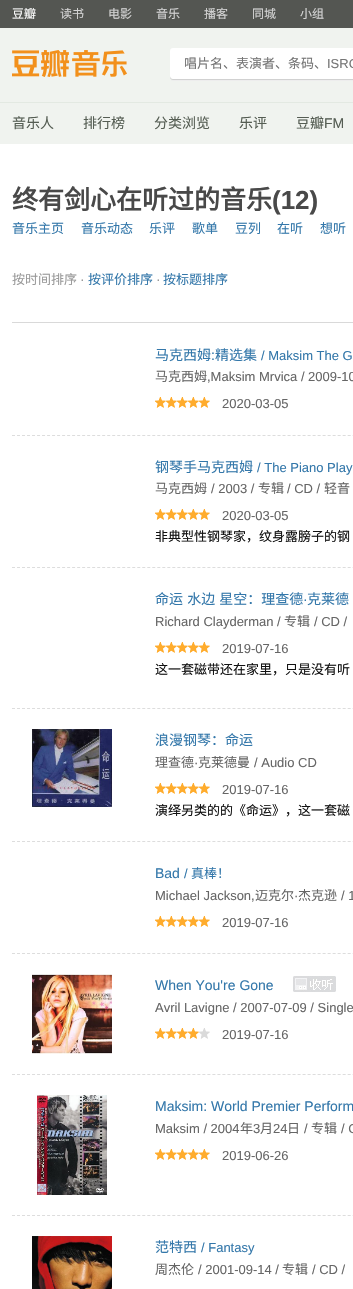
void draw(SkCanvas* canvas) {
    SkPaint paint;
    paint.setAntiAlias(true);
    auto spacedText = [&](const char* s, float x, float y, const SkFont& font, const SkPaint& ink, float letter, float word) {
        std::vector<SkGlyphID> glyphs(font.countText(s, strlen(s), SkTextEncoding::kUTF8));
        std::vector<float> xs(glyphs.size());
        font.textToGlyphs(s, strlen(s), SkTextEncoding::kUTF8, glyphs);
        font.getXPos(glyphs, xs, x);
        float extra = 0;
        for (size_t i = 0; i < glyphs.size(); i++) {
            xs[i] += extra;
            extra += letter + word * (glyphs[i] == font.unicharToGlyph(' '));
        }
        canvas->drawTextBlob(SkTextBlob::MakeFromPosHGlyphs(glyphs, xs, y, font), 0, 0, ink);
    };
    canvas->clear(0xFFFFFFFF);
    paint.setColor(0xFF545652);
    canvas->drawRect(SkRect::MakeXYWH(0, 0, 353, 28), paint);
    SkFont font1(fontMgr->matchFamilyStyle("Noto Sans CJK SC", SkFontStyle::Normal()), 12);
    font1.setSubpixel(true);
    paint.setColor(0xFFFFFFFF);
    canvas->drawString("豆瓣", 12, 18, font1, paint);
    paint.setColor(0xFFD5D5D5);
    canvas->drawString("读书", 60, 18, font1, paint);
    canvas->drawString("电影", 108, 18, font1, paint);
    canvas->drawString("音乐", 156, 18, font1, paint);
    canvas->drawString("播客", 204, 18, font1, paint);
    canvas->drawString("同城", 252, 18, font1, paint);
    canvas->drawString("小组", 300, 18, font1, paint);
    paint.setColor(0xFFF0F3EF);
    canvas->drawRect(SkRect::MakeXYWH(0, 28, 353, 116), paint);
    paint.setColor(0xFFE3E9E2);
    canvas->drawRect(SkRect::MakeXYWH(0, 102, 353, 1), paint);
    canvas->drawImageRect(SkImages::DeferredFromEncodedData(SkData::MakeFromFileName("img1.png")), SkRect::MakeXYWH(12, 50, 115, 27), SkSamplingOptions());
    canvas->drawImageRect(SkImages::DeferredFromEncodedData(SkData::MakeFromFileName("img2.png")), SkRect::MakeXYWH(170, 48, 183, 33), SkSamplingOptions());
    SkFont font2(fontMgr->matchFamilyStyle("Noto Sans CJK SC", SkFontStyle::Normal()), 13);
    font2.setSubpixel(true);
    paint.setColor(0xFF757575);
    canvas->drawString("唱片名、表演者、条码、", 184, 68, font2, paint);
    SkFont font3(fontMgr->matchFamilyStyle("Liberation Sans", SkFontStyle::Normal()), 13);
    font3.setSubpixel(true);
    canvas->drawString("ISRC", 327, 68, font3, paint);
    SkFont font4(fontMgr->matchFamilyStyle("Noto Sans CJK SC", SkFontStyle::Normal()), 14);
    font4.setSubpixel(true);
    paint.setColor(0xFF555D53);
    canvas->drawString("音乐人", 12, 128, font4, paint);
    canvas->drawString("排行榜", 83, 128, font4, paint);
    canvas->drawString("分类浏览", 154, 128, font4, paint);
    canvas->drawString("乐评", 239, 128, font4, paint);
    canvas->drawString("豆瓣", 296, 128, font4, paint);
    SkFont font5(fontMgr->matchFamilyStyle("Liberation Sans", SkFontStyle::Normal()), 14);
    font5.setSubpixel(true);
    canvas->drawString("FM", 324, 128, font5, paint);
    SkFont font6(fontMgr->matchFamilyStyle("Noto Sans CJK SC", SkFontStyle::Bold()), 26);
    font6.setSubpixel(true);
    paint.setColor(0xFF494949);
    canvas->drawString("终有剑心在听过的音乐", 12, 209, font6, paint);
    SkFont font7(fontMgr->matchFamilyStyle("Liberation Sans", SkFontStyle::Bold()), 26);
    font7.setSubpixel(true);
    canvas->drawString("(12)", 272, 209, font7, paint);
    paint.setColor(0xFF3377AA);
    canvas->drawString("音乐主页", 12, 233, font2, paint);
    canvas->drawString("音乐动态", 81, 233, font2, paint);
    canvas->drawString("乐评", 149, 233, font2, paint);
    canvas->drawString("歌单", 192, 233, font2, paint);
    canvas->drawString("豆列", 235, 233, font2, paint);
    canvas->drawString("在听", 277, 233, font2, paint);
    canvas->drawString("想听", 320, 233, font2, paint);
    paint.setColor(0xFF999999);
    canvas->drawString("按时间排序", 12, 284, font2, paint);
    canvas->drawString("·", 80, 284, font5, paint);
    paint.setColor(0xFF3377AA);
    canvas->drawString("按评价排序", 88, 284, font2, paint);
    paint.setColor(0xFF999999);
    canvas->drawString("·", 156, 284, font5, paint);
    paint.setColor(0xFF3377AA);
    canvas->drawString("按标题排序", 163, 284, font2, paint);
    paint.setColor(0xFFD9D9D9);
    canvas->drawRect(SkRect::MakeXYWH(12, 322, 341, 1), paint);
    paint.setStyle(SkPaint::kStroke_Style);
    paint.setStrokeWidth(1);
    paint.setColor(0xFFDDDDDD);
    paint.setPathEffect(SkDashPathEffect::Make({{3, 2.01f}}, 0));
    canvas->drawPath(SkPathBuilder().moveTo(12, 435.5f).lineTo(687, 435.5f).detach(), paint);
    paint.setPathEffect(nullptr);
    paint.setStyle(SkPaint::kFill_Style);
    paint.setColor(0xFF3377AA);
    canvas->drawString("马克西姆", 155, 360, font4, paint);
    canvas->drawString(":", 211, 360, font5, paint);
    canvas->drawString("精选集", 215, 360, font4, paint);
    canvas->drawString("/ Maksim The G", 261, 360, font3, paint);
    paint.setColor(0xFF666666);
    canvas->drawString("马克西姆", 155, 381, font2, paint);
    canvas->drawString(",Maksim Mrvica / 2009-10", 207, 381, font3, paint);
    canvas->drawImageRect(SkImages::DeferredFromEncodedData(SkData::MakeFromFileName("img3.png")), SkRect::MakeXYWH(155, 397, 55, 11), SkSamplingOptions());
    canvas->drawString("2020-03-05", 222, 408, font3, paint);
    paint.setStyle(SkPaint::kStroke_Style);
    paint.setColor(0xFFDDDDDD);
    paint.setPathEffect(SkDashPathEffect::Make({{3, 2.01f}}, 0));
    canvas->drawPath(SkPathBuilder().moveTo(12, 567.5f).lineTo(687, 567.5f).detach(), paint);
    paint.setPathEffect(nullptr);
    paint.setStyle(SkPaint::kFill_Style);
    paint.setColor(0xFF3377AA);
    canvas->drawString("钢琴手马克西姆", 155, 472, font4, paint);
    canvas->drawString("/ The Piano Play", 257, 472, font3, paint);
    paint.setColor(0xFF666666);
    canvas->drawString("马克西姆", 155, 493, font2, paint);
    canvas->drawString("/ 2003 /", 211, 493, font3, paint);
    canvas->drawString("专辑", 258, 493, font2, paint);
    canvas->drawString("/ CD /", 287, 493, font3, paint);
    canvas->drawString("轻音", 324, 493, font2, paint);
    canvas->drawImageRect(SkImages::DeferredFromEncodedData(SkData::MakeFromFileName("img3.png")), SkRect::MakeXYWH(155, 509, 55, 11), SkSamplingOptions());
    canvas->drawString("2020-03-05", 222, 520, font3, paint);
    paint.setColor(0xFF111111);
    canvas->drawString("非典型性钢琴家，纹身露膀子的钢", 155, 541, font2, paint);
    paint.setStyle(SkPaint::kStroke_Style);
    paint.setColor(0xFFDDDDDD);
    paint.setPathEffect(SkDashPathEffect::Make({{3, 2.01f}}, 0));
    canvas->drawPath(SkPathBuilder().moveTo(12, 708.5f).lineTo(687, 708.5f).detach(), paint);
    paint.setPathEffect(nullptr);
    paint.setStyle(SkPaint::kFill_Style);
    paint.setColor(0xFF3377AA);
    spacedText("命运 水边 星空：理查德", 155, 604, font4, paint, 0, 1);
    canvas->drawString("·", 303, 604, font5, paint);
    canvas->drawString("克莱德", 307, 604, font4, paint);
    paint.setColor(0xFF666666);
    canvas->drawString("Richard Clayderman /", 155, 626, font3, paint);
    canvas->drawString("专辑", 284, 626, font2, paint);
    canvas->drawString("/ CD /", 314, 626, font3, paint);
    canvas->drawImageRect(SkImages::DeferredFromEncodedData(SkData::MakeFromFileName("img3.png")), SkRect::MakeXYWH(155, 642, 55, 11), SkSamplingOptions());
    canvas->drawString("2019-07-16", 222, 653, font3, paint);
    paint.setColor(0xFF111111);
    canvas->drawString("这一套磁带还在家里，只是没有听", 155, 674, font2, paint);
    paint.setStyle(SkPaint::kStroke_Style);
    paint.setColor(0xFFDDDDDD);
    paint.setPathEffect(SkDashPathEffect::Make({{3, 2.01f}}, 0));
    canvas->drawPath(SkPathBuilder().moveTo(12, 841.5f).lineTo(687, 841.5f).detach(), paint);
    paint.setPathEffect(nullptr);
    canvas->drawImageRect(SkImages::DeferredFromEncodedData(SkData::MakeFromFileName("img4.png")), SkRect::MakeXYWH(32, 729, 80, 78), SkSamplingOptions());
    paint.setStyle(SkPaint::kFill_Style);
    paint.setColor(0xFF3377AA);
    canvas->drawString("浪漫钢琴：命运", 155, 745, font4, paint);
    paint.setColor(0xFF666666);
    canvas->drawString("理查德", 155, 767, font2, paint);
    canvas->drawString("·", 194, 767, font3, paint);
    canvas->drawString("克莱德曼", 198, 767, font2, paint);
    canvas->drawString("/ Audio CD", 254, 767, font3, paint);
    canvas->drawImageRect(SkImages::DeferredFromEncodedData(SkData::MakeFromFileName("img3.png")), SkRect::MakeXYWH(155, 783, 55, 11), SkSamplingOptions());
    canvas->drawString("2019-07-16", 222, 794, font3, paint);
    paint.setColor(0xFF111111);
    canvas->drawString("演绎另类的的《命运》，这一套磁", 155, 815, font2, paint);
    paint.setStyle(SkPaint::kStroke_Style);
    paint.setColor(0xFFDDDDDD);
    paint.setPathEffect(SkDashPathEffect::Make({{3, 2.01f}}, 0));
    canvas->drawPath(SkPathBuilder().moveTo(12, 953.5f).lineTo(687, 953.5f).detach(), paint);
    paint.setPathEffect(nullptr);
    paint.setStyle(SkPaint::kFill_Style);
    paint.setColor(0xFF3377AA);
    canvas->drawString("Bad", 155, 878, font5, paint);
    canvas->drawString("/", 184, 878, font3, paint);
    canvas->drawString("真棒！", 191, 878, font2, paint);
    paint.setColor(0xFF666666);
    canvas->drawString("Michael Jackson,", 155, 900, font3, paint);
    canvas->drawString("迈克尔", 255, 900, font2, paint);
    canvas->drawString("·", 294, 900, font3, paint);
    canvas->drawString("杰克逊", 298, 900, font2, paint);
    canvas->drawString("/ 1", 341, 900, font3, paint);
    canvas->drawImageRect(SkImages::DeferredFromEncodedData(SkData::MakeFromFileName("img3.png")), SkRect::MakeXYWH(155, 916, 55, 11), SkSamplingOptions());
    canvas->drawString("2019-07-16", 222, 927, font3, paint);
    paint.setStyle(SkPaint::kStroke_Style);
    paint.setColor(0xFFDDDDDD);
    paint.setPathEffect(SkDashPathEffect::Make({{3, 2.01f}}, 0));
    canvas->drawPath(SkPathBuilder().moveTo(12, 1074.5f).lineTo(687, 1074.5f).detach(), paint);
    paint.setPathEffect(nullptr);
    canvas->drawImageRect(SkImages::DeferredFromEncodedData(SkData::MakeFromFileName("img5.png")), SkRect::MakeXYWH(32, 974, 80, 80), SkSamplingOptions());
    paint.setStyle(SkPaint::kFill_Style);
    paint.setColor(0xFF3377AA);
    canvas->drawString("When You're Gone", 155, 990, font5, paint);
    canvas->drawImageRect(SkImages::DeferredFromEncodedData(SkData::MakeFromFileName("img6.png")), SkRect::MakeXYWH(293, 976, 43, 16), SkSamplingOptions());
    paint.setColor(0xFF666666);
    canvas->drawString("Avril Lavigne / 2007-07-09 / Single", 155, 1012, font3, paint);
    canvas->drawImageRect(SkImages::DeferredFromEncodedData(SkData::MakeFromFileName("img7.png")), SkRect::MakeXYWH(155, 1028, 55, 11), SkSamplingOptions());
    canvas->drawString("2019-07-16", 222, 1039, font3, paint);
    paint.setStyle(SkPaint::kStroke_Style);
    paint.setColor(0xFFDDDDDD);
    paint.setPathEffect(SkDashPathEffect::Make({{3, 2.01f}}, 0));
    canvas->drawPath(SkPathBuilder().moveTo(12, 1215.5f).lineTo(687, 1215.5f).detach(), paint);
    paint.setPathEffect(nullptr);
    canvas->drawImageRect(SkImages::DeferredFromEncodedData(SkData::MakeFromFileName("img8.png")), SkRect::MakeXYWH(37, 1095, 70, 100), SkSamplingOptions());
    paint.setStyle(SkPaint::kFill_Style);
    paint.setColor(0xFF3377AA);
    canvas->drawString("Maksim: World Premier Perform", 155, 1111, font5, paint);
    paint.setColor(0xFF666666);
    canvas->drawString("Maksim / 2004", 155, 1133, font3, paint);
    canvas->drawString("年", 240, 1133, font2, paint);
    canvas->drawString("3", 253, 1133, font3, paint);
    canvas->drawString("月", 260, 1133, font2, paint);
    canvas->drawString("24", 273, 1133, font3, paint);
    canvas->drawString("日", 287, 1133, font2, paint);
    canvas->drawString("/", 304, 1133, font3, paint);
    canvas->drawString("专辑", 311, 1133, font2, paint);
    canvas->drawString("/ C", 341, 1133, font3, paint);
    canvas->drawImageRect(SkImages::DeferredFromEncodedData(SkData::MakeFromFileName("img3.png")), SkRect::MakeXYWH(155, 1149, 55, 11), SkSamplingOptions());
    canvas->drawString("2019-06-26", 222, 1160, font3, paint);
    canvas->drawImageRect(SkImages::DeferredFromEncodedData(SkData::MakeFromFileName("img9.png")), SkRect::MakeXYWH(32, 1236, 80, 53), SkSamplingOptions());
    paint.setColor(0xFF3377AA);
    canvas->drawString("范特西", 155, 1252, font4, paint);
    canvas->drawString("/ Fantasy", 201, 1252, font3, paint);
    paint.setColor(0xFF666666);
    canvas->drawString("周杰伦", 155, 1274, font2, paint);
    canvas->drawString("/ 2001-09-14 /", 198, 1274, font3, paint);
    canvas->drawString("专辑", 282, 1274, font2, paint);
    canvas->drawString("/ CD /", 312, 1274, font3, paint);
}
